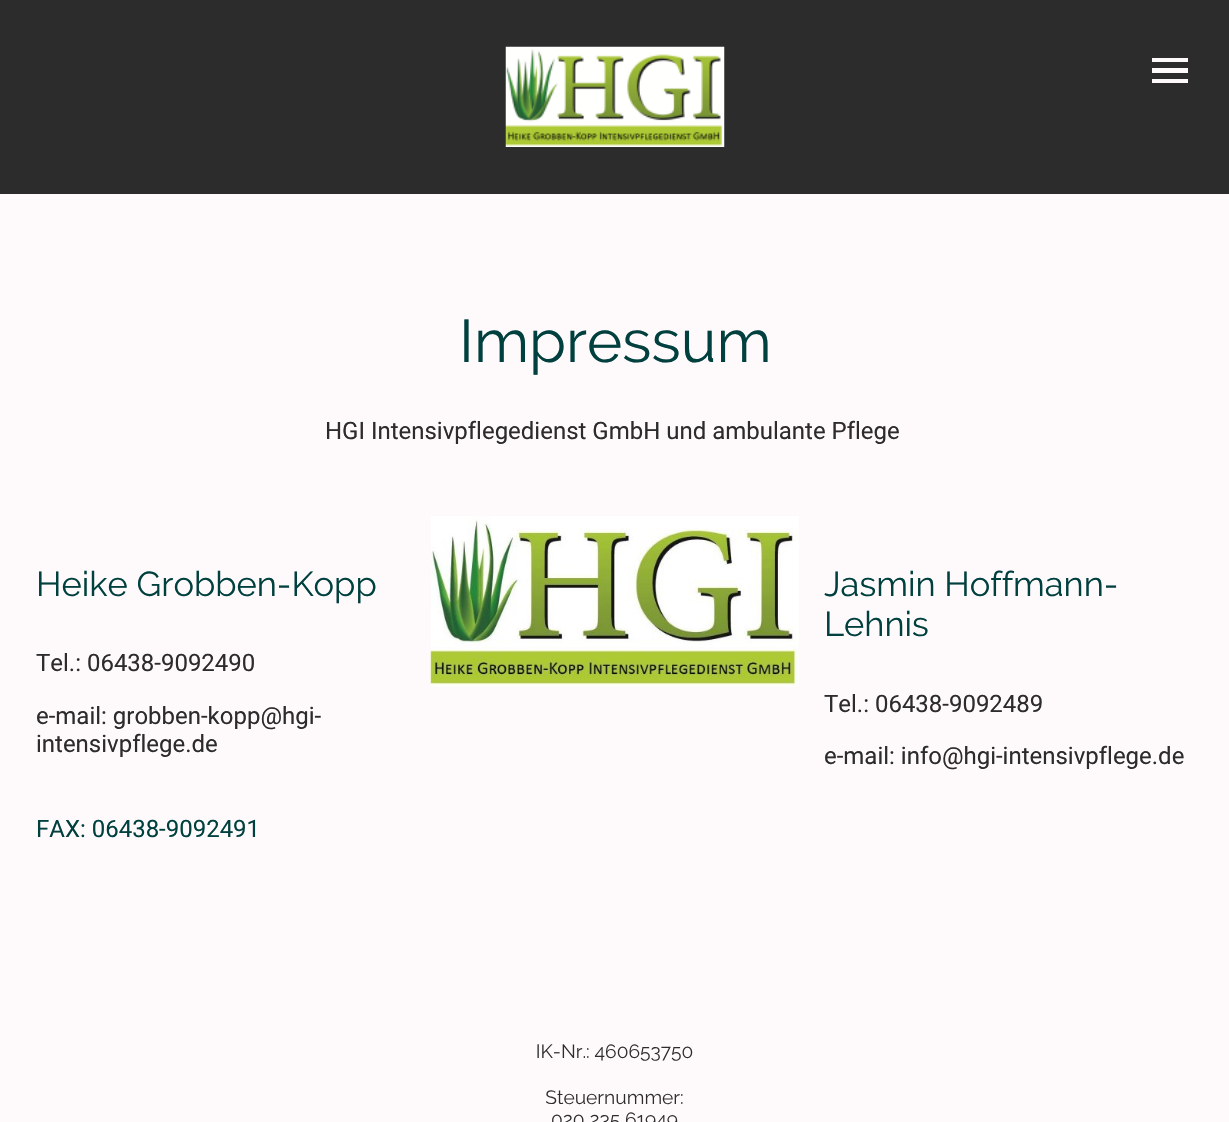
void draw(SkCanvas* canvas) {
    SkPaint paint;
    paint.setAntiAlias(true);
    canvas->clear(0xFFFEF9FA);
    paint.setColor(0xFF2C2C2C);
    canvas->drawRect(SkRect::MakeXYWH(0, 0, 1229, 194), paint);
    canvas->drawImageRect(SkImages::DeferredFromEncodedData(SkData::MakeFromFileName("img1.png")), SkRect::MakeXYWH(505, 46, 220, 101), SkSamplingOptions());
    paint.setColor(0xFFFEF9FA);
    canvas->drawRect(SkRect::MakeXYWH(1152, 58, 36, 4), paint);
    canvas->drawRect(SkRect::MakeXYWH(1152, 68, 36, 5), paint);
    canvas->drawRect(SkRect::MakeXYWH(1152, 79, 36, 4), paint);
    SkFont font1(fontMgr->matchFamilyStyle("Raleway", SkFontStyle::Normal()), 60);
    font1.setSubpixel(true);
    paint.setColor(0xFF00403E);
    canvas->drawString("Impressum", 459, 362, font1, paint);
    SkFont font2(fontMgr->matchFamilyStyle("Roboto", SkFontStyle::Normal()), 24);
    font2.setSubpixel(true);
    paint.setColor(0xFF2C2C2C);
    canvas->drawString("HGI Intensivpflegedienst GmbH und ambulante Pflege", 325, 439, font2, paint);
    SkFont font3(fontMgr->matchFamilyStyle("Raleway", SkFontStyle::Normal()), 34.5f);
    font3.setSubpixel(true);
    paint.setColor(0xFF00403E);
    canvas->drawString("Heike Grobben-Kopp", 36, 596, font3, paint);
    paint.setColor(0xFF2C2C2C);
    canvas->drawString("Tel.: 06438-9092490", 36, 671, font2, paint);
    canvas->drawString("e-mail: grobben-kopp@hgi-", 36, 724, font2, paint);
    canvas->drawString("intensivpflege.de", 36, 752, font2, paint);
    paint.setColor(0xFF00403E);
    canvas->drawString("FAX: 06438-9092491", 36, 837, font2, paint);
    canvas->drawImageRect(SkImages::DeferredFromEncodedData(SkData::MakeFromFileName("img2.png")), SkRect::MakeXYWH(430, 516, 369, 171), SkSamplingOptions());
    canvas->drawString("Jasmin Hoffmann-", 824, 596, font3, paint);
    canvas->drawString("Lehnis", 824, 636, font3, paint);
    paint.setColor(0xFF2C2C2C);
    canvas->drawString("Tel.: 06438-9092489", 824, 712, font2, paint);
    canvas->drawString("e-mail: info@hgi-intensivpflege.de", 824, 764, font2, paint);
    canvas->drawImageRect(SkImages::DeferredFromEncodedData(SkData::MakeFromFileName("img3.png")), SkRect::MakeXYWH(537, 1044, 156, 78), SkSamplingOptions());
}
